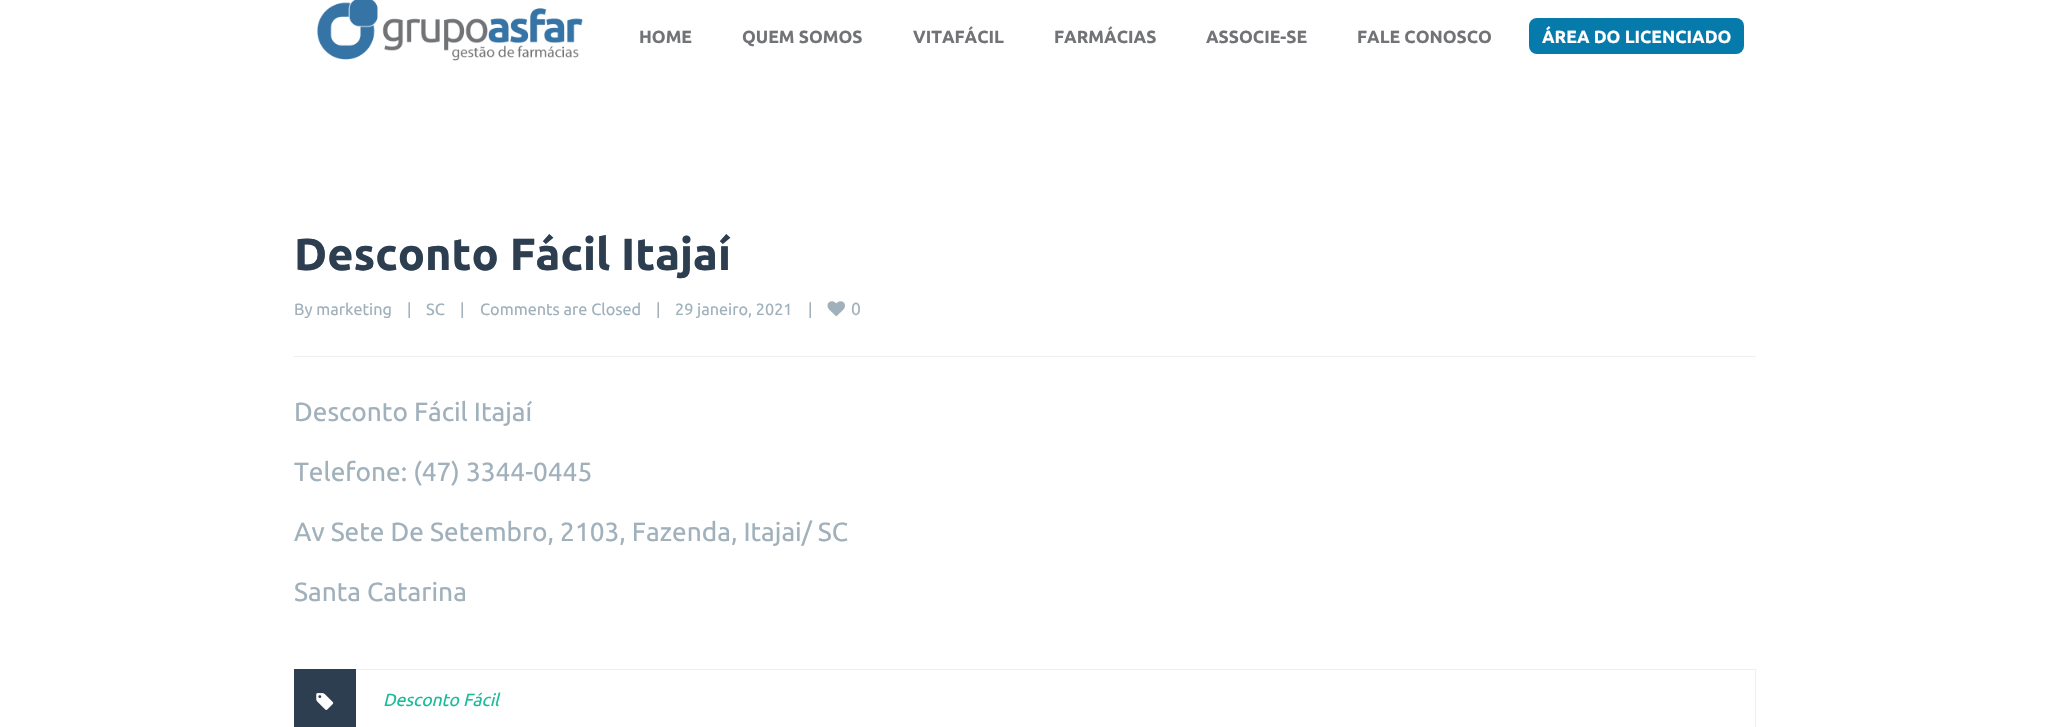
void draw(SkCanvas* canvas) {
    SkPaint paint;
    paint.setAntiAlias(true);
    canvas->clear(0xFFFFFFFF);
    canvas->drawImageRect(SkImages::DeferredFromEncodedData(SkData::MakeFromFileName("img1.png")), SkRect::MakeXYWH(317, 0, 266, 61), SkSamplingOptions());
    SkFont font1(fontMgr->matchFamilyStyle("Ubuntu", SkFontStyle::Bold()), 17.5f);
    font1.setSubpixel(true);
    paint.setColor(0xFF727376);
    canvas->drawString("HOME", 639, 43, font1, paint);
    canvas->drawString("QUEM SOMOS", 742, 43, font1, paint);
    canvas->drawString("VITAFÁCIL", 913, 43, font1, paint);
    canvas->drawString("FARMÁCIAS", 1054, 43, font1, paint);
    canvas->drawString("ASSOCIE-SE", 1206, 43, font1, paint);
    canvas->drawString("FALE CONOSCO", 1357, 43, font1, paint);
    paint.setColor(0xFF067AAA);
    canvas->drawRoundRect(SkRect::MakeXYWH(1529, 18, 215, 36), 8, 8, paint);
    paint.setColor(0xFFFFFFFF);
    canvas->drawString("ÁREA DO LICENCIADO", 1542, 43, font1, paint);
    SkFont font2(fontMgr->matchFamilyStyle("Ubuntu", SkFontStyle::Bold()), 45);
    font2.setSubpixel(true);
    paint.setColor(0xFF2C3E50);
    canvas->drawString("Desconto Fácil Itajaí", 294, 270, font2, paint);
    paint.setColor(0xFFECF0F1);
    canvas->drawRect(SkRect::MakeXYWH(294, 356, 1462, 1), paint);
    SkFont font3(fontMgr->matchFamilyStyle("Ubuntu", SkFontStyle::Normal()), 16.25f);
    font3.setSubpixel(true);
    paint.setColor(0xFFA1B1BC);
    canvas->drawString("By marketing", 294, 315, font3, paint);
    canvas->drawString("|", 407, 315, font3, paint);
    canvas->drawString("SC", 426, 315, font3, paint);
    canvas->drawString("|", 460, 315, font3, paint);
    canvas->drawString("Comments are Closed", 480, 315, font3, paint);
    canvas->drawString("|", 656, 315, font3, paint);
    canvas->drawString("29 janeiro, 2021", 675, 315, font3, paint);
    canvas->drawString("|", 808, 315, font3, paint);
    canvas->drawImageRect(SkImages::DeferredFromEncodedData(SkData::MakeFromFileName("img2.png")), SkRect::MakeXYWH(827, 301, 18, 16), SkSamplingOptions());
    SkFont font4(fontMgr->matchFamilyStyle("Ubuntu", SkFontStyle::Normal()), 17.5f);
    font4.setSubpixel(true);
    canvas->drawString("0", 851, 315, font4, paint);
    SkFont font5(fontMgr->matchFamilyStyle("Ubuntu", SkFontStyle::Normal()), 26.25f);
    font5.setSubpixel(true);
    canvas->drawString("Desconto Fácil Itajaí", 294, 421, font5, paint);
    canvas->drawString("Telefone: (47) 3344-0445", 294, 481, font5, paint);
    canvas->drawString("Av Sete De Setembro, 2103, Fazenda, Itajai/ SC", 294, 541, font5, paint);
    canvas->drawString("Santa Catarina", 294, 601, font5, paint);
    paint.setStyle(SkPaint::kStroke_Style);
    paint.setStrokeWidth(1);
    paint.setColor(0xFFECEEF0);
    canvas->drawRect(SkRect::MakeXYWH(294.5f, 669.5f, 1461, 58), paint);
    paint.setStyle(SkPaint::kFill_Style);
    paint.setColor(0xFF2C3E50);
    canvas->drawRect(SkRect::MakeXYWH(294, 669, 62, 58), paint);
    canvas->drawImageRect(SkImages::DeferredFromEncodedData(SkData::MakeFromFileName("img3.png")), SkRect::MakeXYWH(316, 693, 18, 17), SkSamplingOptions());
    SkFont font6(fontMgr->matchFamilyStyle("Ubuntu", SkFontStyle::Italic()), 17.5f);
    font6.setSubpixel(true);
    paint.setColor(0xFF1ABC9C);
    canvas->drawString("Desconto Fácil", 383, 706, font6, paint);
}
